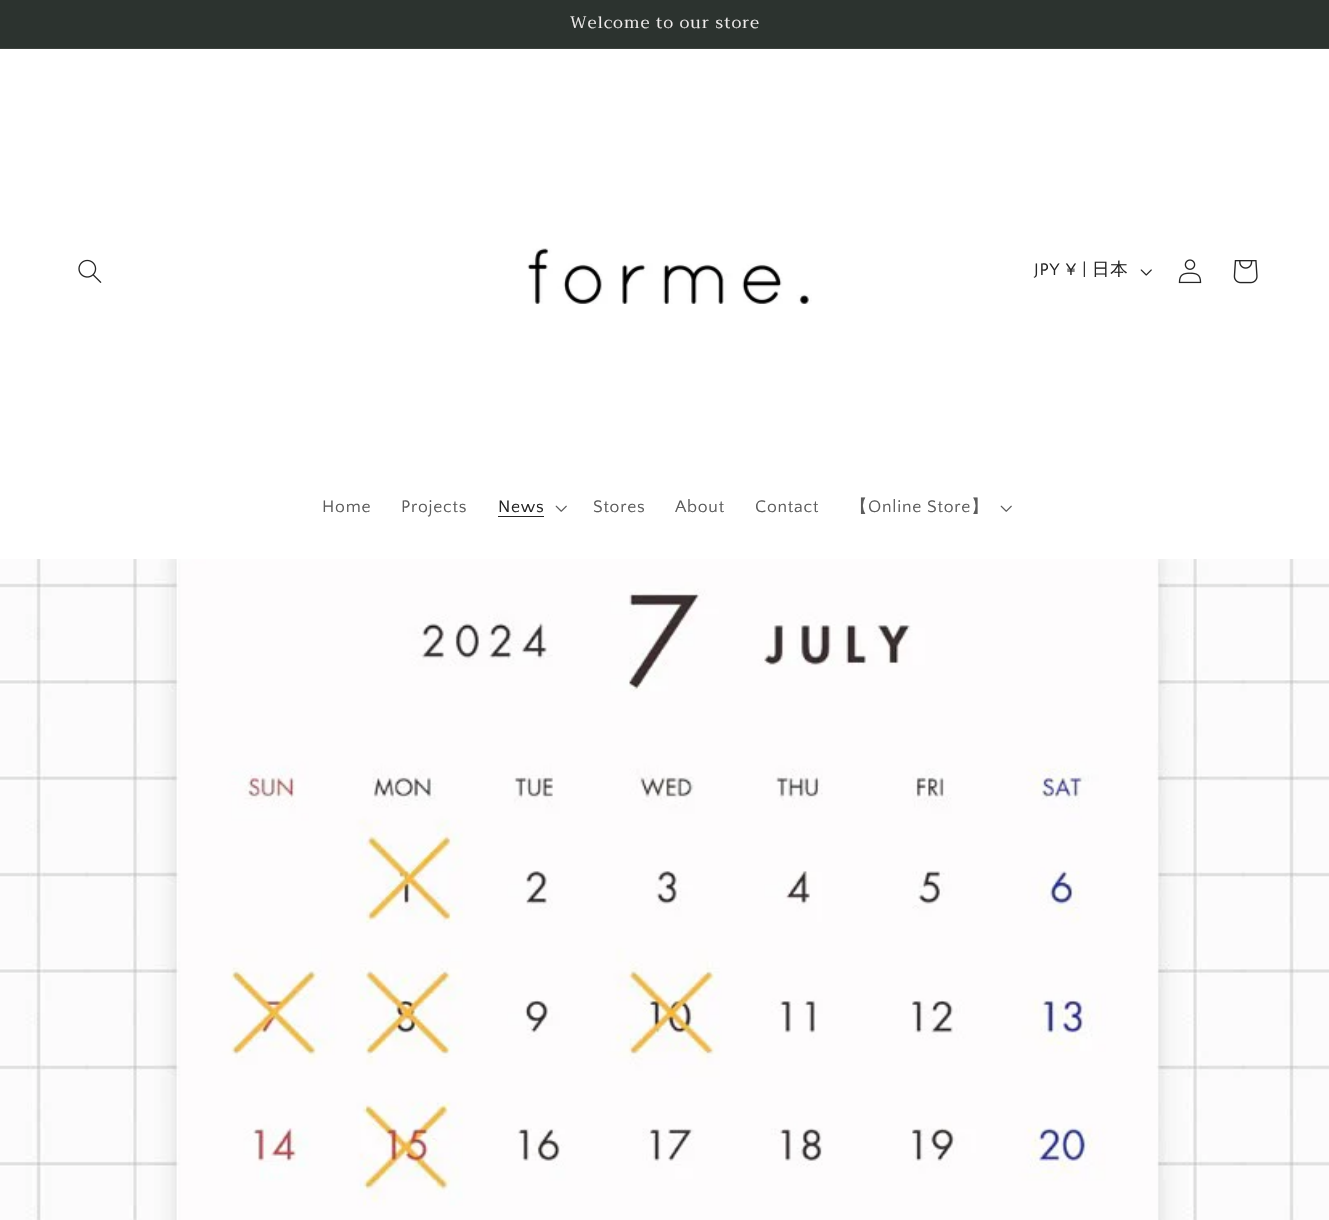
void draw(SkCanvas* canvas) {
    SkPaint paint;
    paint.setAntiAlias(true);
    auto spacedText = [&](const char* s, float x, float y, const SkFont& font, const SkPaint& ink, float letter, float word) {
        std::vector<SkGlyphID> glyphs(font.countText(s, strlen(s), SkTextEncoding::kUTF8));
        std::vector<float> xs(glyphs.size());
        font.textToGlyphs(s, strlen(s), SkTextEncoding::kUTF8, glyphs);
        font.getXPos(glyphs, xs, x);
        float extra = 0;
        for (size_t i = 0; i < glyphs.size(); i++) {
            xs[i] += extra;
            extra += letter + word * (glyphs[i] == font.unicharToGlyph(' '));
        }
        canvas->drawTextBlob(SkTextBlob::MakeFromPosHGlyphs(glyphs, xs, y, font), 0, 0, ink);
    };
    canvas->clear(0xFFFFFFFF);
    paint.setColor(0xFF2C332F);
    canvas->drawRect(SkRect::MakeXYWH(0, 0, 1329, 48), paint);
    paint.setColor(0xFF3C423E);
    canvas->drawRect(SkRect::MakeXYWH(0, 48, 1329, 1), paint);
    SkFont font1(fontMgr->matchFamilyStyle("Trirong", SkFontStyle::Normal()), 16.25f);
    font1.setSubpixel(true);
    paint.setColor(0xFFEFECEC);
    spacedText("Welcome to our store", 570, 28, font1, paint, 1.25f, 0);
    canvas->drawImageRect(SkImages::DeferredFromEncodedData(SkData::MakeFromFileName("img1.png")), SkRect::MakeXYWH(78, 259, 24, 24), SkSamplingOptions());
    canvas->drawImageRect(SkImages::DeferredFromEncodedData(SkData::MakeFromFileName("img2.png")), SkRect::MakeXYWH(527, 248, 285, 56), SkSamplingOptions());
    SkFont font2(fontMgr->matchFamilyStyle("Quattrocento Sans", SkFontStyle::Normal()), 17.5f);
    font2.setSubpixel(true);
    paint.setColor(0xFF252525);
    spacedText("JPY ¥ |", 1034, 275, font2, paint, 0.75f, 0);
    SkFont font3(fontMgr->matchFamilyStyle("WenQuanYi Zen Hei", SkFontStyle(500, SkFontStyle::kNormal_Width, SkFontStyle::kUpright_Slant)), 17.5f);
    font3.setSubpixel(true);
    spacedText("日本", 1092, 275, font3, paint, 0.75f, 0);
    canvas->drawImageRect(SkImages::DeferredFromEncodedData(SkData::MakeFromFileName("img3.png")), SkRect::MakeXYWH(1140, 269, 12, 7), SkSamplingOptions());
    canvas->drawImageRect(SkImages::DeferredFromEncodedData(SkData::MakeFromFileName("img4.png")), SkRect::MakeXYWH(1178, 259, 24, 25), SkSamplingOptions());
    canvas->drawImageRect(SkImages::DeferredFromEncodedData(SkData::MakeFromFileName("img5.png")), SkRect::MakeXYWH(1233, 260, 25, 24), SkSamplingOptions());
    paint.setColor(0xFF5C5C5C);
    spacedText("Home", 322, 512, font2, paint, 0.75f, 0);
    spacedText("Projects", 401, 512, font2, paint, 0.75f, 0);
    paint.setColor(0xFF252525);
    spacedText("News", 498, 512, font2, paint, 0.75f, 0);
    canvas->drawRect(SkRect::MakeXYWH(498, 516, 46, 1), paint);
    canvas->drawImageRect(SkImages::DeferredFromEncodedData(SkData::MakeFromFileName("img6.png")), SkRect::MakeXYWH(555, 505, 12, 7), SkSamplingOptions());
    paint.setColor(0xFF5C5C5C);
    spacedText("Stores", 593, 512, font2, paint, 0.75f, 0);
    spacedText("About", 675, 512, font2, paint, 0.75f, 0);
    spacedText("Contact", 755, 512, font2, paint, 0.75f, 0);
    spacedText("【", 850, 512, font3, paint, 0.75f, 0);
    spacedText("Online Store", 868, 512, font2, paint, 0.75f, 0);
    spacedText("】", 971, 512, font3, paint, 0.75f, 0);
    canvas->drawImageRect(SkImages::DeferredFromEncodedData(SkData::MakeFromFileName("img6.png")), SkRect::MakeXYWH(1000, 505, 12, 7), SkSamplingOptions());
    canvas->drawImageRect(SkImages::DeferredFromEncodedData(SkData::MakeFromFileName("img7.png")), SkRect::MakeXYWH(0, 559, 1329, 661), SkSamplingOptions());
}
